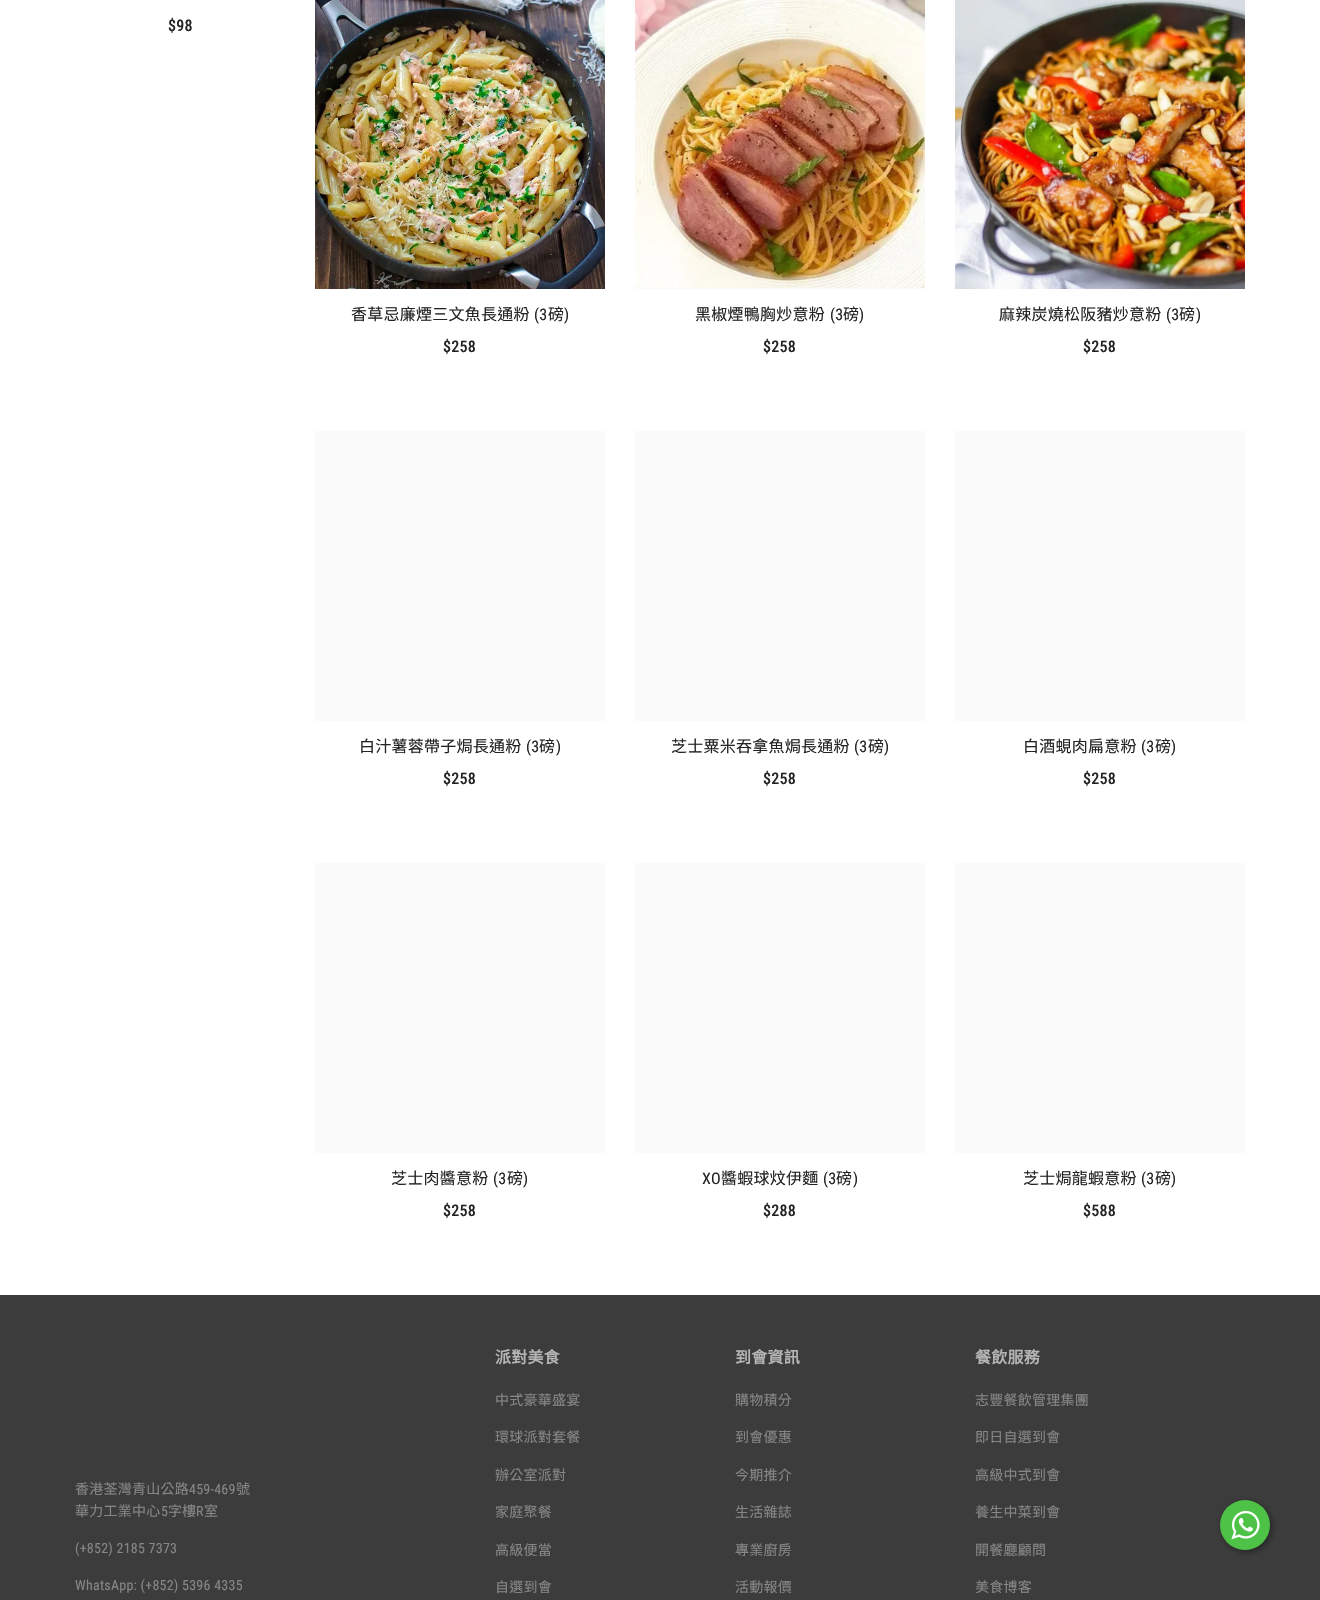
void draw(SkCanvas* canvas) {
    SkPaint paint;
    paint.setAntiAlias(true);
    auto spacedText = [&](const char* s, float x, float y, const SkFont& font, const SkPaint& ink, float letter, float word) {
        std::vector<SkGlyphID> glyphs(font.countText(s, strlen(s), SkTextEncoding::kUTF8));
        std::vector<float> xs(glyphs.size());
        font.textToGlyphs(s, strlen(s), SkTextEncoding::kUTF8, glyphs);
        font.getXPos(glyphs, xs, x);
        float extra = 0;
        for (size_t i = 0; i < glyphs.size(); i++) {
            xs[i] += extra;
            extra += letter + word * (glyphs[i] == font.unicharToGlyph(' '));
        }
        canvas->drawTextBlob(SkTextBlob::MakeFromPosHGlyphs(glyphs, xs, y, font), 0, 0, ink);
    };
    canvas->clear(0xFFFFFFFF);
    SkFont font1(fontMgr->matchFamilyStyle("Roboto Condensed", SkFontStyle(500, SkFontStyle::kNormal_Width, SkFontStyle::kUpright_Slant)), 16);
    font1.setSubpixel(true);
    paint.setColor(0xFF232323);
    spacedText("$98", 168, 31, font1, paint, 0.25f, 0);
    canvas->drawImageRect(SkImages::DeferredFromEncodedData(SkData::MakeFromFileName("img1.png")), SkRect::MakeXYWH(315, 0, 290, 289), SkSamplingOptions());
    SkFont font2(fontMgr->matchFamilyStyle("Noto Sans CJK TC", SkFontStyle::Normal()), 16);
    font2.setSubpixel(true);
    spacedText("香草忌廉煙三文魚長通粉", 351, 320, font2, paint, 0.25f, 0);
    SkFont font3(fontMgr->matchFamilyStyle("Roboto Condensed", SkFontStyle::Normal()), 16);
    font3.setSubpixel(true);
    spacedText("(3", 534, 320, font3, paint, 0.25f, 0);
    spacedText("磅", 548, 320, font2, paint, 0.25f, 0);
    spacedText(")", 564, 320, font3, paint, 0.25f, 0);
    spacedText("$258", 443, 352, font1, paint, 0.25f, 0);
    {
        const SkColor colors[] = {0xFFFAFAFA, 0xFFF1F2F3, 0xFFFAFAFA};
        const float stops[] = {0.04f, 0.25f, 0.36f};
        const SkPoint ends[] = {{-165, 144}, {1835, 144}};
        paint.setShader(SkGradientShader::MakeLinear(ends, colors, stops, 3, SkTileMode::kClamp));
        paint.setAlpha(255);
    }
    canvas->drawRect(SkRect::MakeXYWH(635, 288, 290, 1), paint);
    canvas->drawImageRect(SkImages::DeferredFromEncodedData(SkData::MakeFromFileName("img2.png")), SkRect::MakeXYWH(635, 0, 290, 288), SkSamplingOptions());
    paint.setShader(nullptr);
    paint.setColor(0xFF232323);
    spacedText("黑椒煙鴨胸炒意粉", 695, 320, font2, paint, 0.25f, 0);
    spacedText("(3", 830, 320, font3, paint, 0.25f, 0);
    spacedText("磅", 843, 320, font2, paint, 0.25f, 0);
    spacedText(")", 859, 320, font3, paint, 0.25f, 0);
    spacedText("$258", 763, 352, font1, paint, 0.25f, 0);
    canvas->drawImageRect(SkImages::DeferredFromEncodedData(SkData::MakeFromFileName("img3.png")), SkRect::MakeXYWH(955, 0, 290, 289), SkSamplingOptions());
    spacedText("麻辣炭燒松阪豬炒意粉", 999, 320, font2, paint, 0.25f, 0);
    spacedText("(3", 1166, 320, font3, paint, 0.25f, 0);
    spacedText("磅", 1179, 320, font2, paint, 0.25f, 0);
    spacedText(")", 1196, 320, font3, paint, 0.25f, 0);
    spacedText("$258", 1083, 352, font1, paint, 0.25f, 0);
    {
        const SkColor colors[] = {0xFFFAFAFA, 0xFFF1F2F3, 0xFFFAFAFA};
        const float stops[] = {0.04f, 0.25f, 0.36f};
        const SkPoint ends[] = {{-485, 576}, {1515, 576}};
        paint.setShader(SkGradientShader::MakeLinear(ends, colors, stops, 3, SkTileMode::kClamp));
        paint.setAlpha(255);
    }
    canvas->drawRect(SkRect::MakeXYWH(315, 431, 290, 290), paint);
    paint.setShader(nullptr);
    paint.setColor(0xFF232323);
    spacedText("白汁薯蓉帶子焗長通粉", 359, 752, font2, paint, 0.25f, 0);
    spacedText("(3", 526, 752, font3, paint, 0.25f, 0);
    spacedText("磅", 539, 752, font2, paint, 0.25f, 0);
    spacedText(")", 556, 752, font3, paint, 0.25f, 0);
    spacedText("$258", 443, 784, font1, paint, 0.25f, 0);
    {
        const SkColor colors[] = {0xFFFAFAFA, 0xFFF1F2F3, 0xFFFAFAFA};
        const float stops[] = {0.04f, 0.25f, 0.36f};
        const SkPoint ends[] = {{-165, 576}, {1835, 576}};
        paint.setShader(SkGradientShader::MakeLinear(ends, colors, stops, 3, SkTileMode::kClamp));
        paint.setAlpha(255);
    }
    canvas->drawRect(SkRect::MakeXYWH(635, 431, 290, 290), paint);
    paint.setShader(nullptr);
    paint.setColor(0xFF232323);
    spacedText("芝士粟米吞拿魚焗長通粉", 671, 752, font2, paint, 0.25f, 0);
    spacedText("(3", 854, 752, font3, paint, 0.25f, 0);
    spacedText("磅", 868, 752, font2, paint, 0.25f, 0);
    spacedText(")", 884, 752, font3, paint, 0.25f, 0);
    spacedText("$258", 763, 784, font1, paint, 0.25f, 0);
    {
        const SkColor colors[] = {0xFFFAFAFA, 0xFFF1F2F3, 0xFFFAFAFA};
        const float stops[] = {0.04f, 0.25f, 0.36f};
        const SkPoint ends[] = {{155, 576}, {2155, 576}};
        paint.setShader(SkGradientShader::MakeLinear(ends, colors, stops, 3, SkTileMode::kClamp));
        paint.setAlpha(255);
    }
    canvas->drawRect(SkRect::MakeXYWH(955, 431, 290, 290), paint);
    paint.setShader(nullptr);
    paint.setColor(0xFF232323);
    spacedText("白酒蜆肉扁意粉", 1023, 752, font2, paint, 0.25f, 0);
    spacedText("(3", 1141, 752, font3, paint, 0.25f, 0);
    spacedText("磅", 1155, 752, font2, paint, 0.25f, 0);
    spacedText(")", 1171, 752, font3, paint, 0.25f, 0);
    spacedText("$258", 1083, 784, font1, paint, 0.25f, 0);
    {
        const SkColor colors[] = {0xFFFAFAFA, 0xFFF1F2F3, 0xFFFAFAFA};
        const float stops[] = {0.04f, 0.25f, 0.36f};
        const SkPoint ends[] = {{-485, 1008}, {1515, 1008}};
        paint.setShader(SkGradientShader::MakeLinear(ends, colors, stops, 3, SkTileMode::kClamp));
        paint.setAlpha(255);
    }
    canvas->drawRect(SkRect::MakeXYWH(315, 863, 290, 290), paint);
    paint.setShader(nullptr);
    paint.setColor(0xFF232323);
    spacedText("芝士肉醬意粉", 391, 1184, font2, paint, 0.25f, 0);
    spacedText("(3", 493, 1184, font3, paint, 0.25f, 0);
    spacedText("磅", 507, 1184, font2, paint, 0.25f, 0);
    spacedText(")", 523, 1184, font3, paint, 0.25f, 0);
    spacedText("$258", 443, 1216, font1, paint, 0.25f, 0);
    {
        const SkColor colors[] = {0xFFFAFAFA, 0xFFF1F2F3, 0xFFFAFAFA};
        const float stops[] = {0.04f, 0.25f, 0.36f};
        const SkPoint ends[] = {{-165, 1008}, {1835, 1008}};
        paint.setShader(SkGradientShader::MakeLinear(ends, colors, stops, 3, SkTileMode::kClamp));
        paint.setAlpha(255);
    }
    canvas->drawRect(SkRect::MakeXYWH(635, 863, 290, 290), paint);
    paint.setShader(nullptr);
    paint.setColor(0xFF232323);
    spacedText("XO", 702, 1184, font3, paint, 0.25f, 0);
    spacedText("醬蝦球炆伊麵", 721, 1184, font2, paint, 0.25f, 0);
    spacedText("(3", 823, 1184, font3, paint, 0.25f, 0);
    spacedText("磅", 836, 1184, font2, paint, 0.25f, 0);
    spacedText(")", 853, 1184, font3, paint, 0.25f, 0);
    spacedText("$288", 763, 1216, font1, paint, 0.25f, 0);
    {
        const SkColor colors[] = {0xFFFAFAFA, 0xFFF1F2F3, 0xFFFAFAFA};
        const float stops[] = {0.04f, 0.25f, 0.36f};
        const SkPoint ends[] = {{155, 1008}, {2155, 1008}};
        paint.setShader(SkGradientShader::MakeLinear(ends, colors, stops, 3, SkTileMode::kClamp));
        paint.setAlpha(255);
    }
    canvas->drawRect(SkRect::MakeXYWH(955, 863, 290, 290), paint);
    paint.setShader(nullptr);
    paint.setColor(0xFF232323);
    spacedText("芝士焗龍蝦意粉", 1023, 1184, font2, paint, 0.25f, 0);
    spacedText("(3", 1141, 1184, font3, paint, 0.25f, 0);
    spacedText("磅", 1155, 1184, font2, paint, 0.25f, 0);
    spacedText(")", 1171, 1184, font3, paint, 0.25f, 0);
    spacedText("$588", 1083, 1216, font1, paint, 0.25f, 0);
    paint.setColor(0xFF3C3C3C);
    canvas->drawRect(SkRect::MakeXYWH(0, 1295, 1320, 305), paint);
    SkFont font4(fontMgr->matchFamilyStyle("Noto Sans CJK TC", SkFontStyle::Normal()), 14);
    font4.setSubpixel(true);
    paint.setColor(0xFF868686);
    spacedText("香港荃灣青山公路", 75, 1494, font4, paint, 0.25f, 0);
    SkFont font5(fontMgr->matchFamilyStyle("Roboto Condensed", SkFontStyle::Normal()), 14);
    font5.setSubpixel(true);
    spacedText("459-469", 189, 1494, font5, paint, 0.25f, 0);
    spacedText("號", 236, 1494, font4, paint, 0.25f, 0);
    spacedText("華力工業中心", 75, 1516, font4, paint, 0.25f, 0);
    spacedText("5", 161, 1516, font5, paint, 0.25f, 0);
    spacedText("字樓", 168, 1516, font4, paint, 0.25f, 0);
    spacedText("R", 196, 1516, font5, paint, 0.25f, 0);
    spacedText("室", 204, 1516, font4, paint, 0.25f, 0);
    spacedText("(+852) 2185 7373", 75, 1553, font5, paint, 0.25f, 0);
    spacedText("WhatsApp: (+852) 5396 4335", 75, 1590, font5, paint, 0.25f, 0);
    SkFont font6(fontMgr->matchFamilyStyle("Noto Sans CJK TC", SkFontStyle::Bold()), 16);
    font6.setSubpixel(true);
    paint.setColor(0xFFB6B6B6);
    spacedText("派對美食", 495, 1363, font6, paint, 0.25f, 0);
    paint.setColor(0xFF868686);
    spacedText("中式豪華盛宴", 495, 1405, font4, paint, 0.25f, 0);
    spacedText("環球派對套餐", 495, 1442, font4, paint, 0.25f, 0);
    spacedText("辦公室派對", 495, 1480, font4, paint, 0.25f, 0);
    spacedText("家庭聚餐", 495, 1517, font4, paint, 0.25f, 0);
    spacedText("高級便當", 495, 1555, font4, paint, 0.25f, 0);
    spacedText("自選到會", 495, 1592, font4, paint, 0.25f, 0);
    paint.setColor(0xFFB6B6B6);
    spacedText("到會資訊", 735, 1363, font6, paint, 0.25f, 0);
    paint.setColor(0xFF868686);
    spacedText("購物積分", 735, 1405, font4, paint, 0.25f, 0);
    spacedText("到會優惠", 735, 1442, font4, paint, 0.25f, 0);
    spacedText("今期推介", 735, 1480, font4, paint, 0.25f, 0);
    spacedText("生活雜誌", 735, 1517, font4, paint, 0.25f, 0);
    spacedText("專業廚房", 735, 1555, font4, paint, 0.25f, 0);
    spacedText("活動報價", 735, 1592, font4, paint, 0.25f, 0);
    paint.setColor(0xFFB6B6B6);
    spacedText("餐飲服務", 975, 1363, font6, paint, 0.25f, 0);
    paint.setColor(0xFF868686);
    spacedText("志豐餐飲管理集團", 975, 1405, font4, paint, 0.25f, 0);
    spacedText("即日自選到會", 975, 1442, font4, paint, 0.25f, 0);
    spacedText("高級中式到會", 975, 1480, font4, paint, 0.25f, 0);
    spacedText("養生中菜到會", 975, 1517, font4, paint, 0.25f, 0);
    spacedText("開餐廳顧問", 975, 1555, font4, paint, 0.25f, 0);
    spacedText("美食博客", 975, 1592, font4, paint, 0.25f, 0);
    paint.setColor(0x66000000);
    paint.setMaskFilter(SkMaskFilter::MakeBlur(kNormal_SkBlurStyle, 3));
    canvas->drawRoundRect(SkRect::MakeXYWH(1222, 1502, 50, 50), 25, 25, paint);
    paint.setMaskFilter(nullptr);
    paint.setColor(0xFF4DC247);
    canvas->drawCircle(1245, 1525, 25, paint);
    canvas->drawImageRect(SkImages::DeferredFromEncodedData(SkData::MakeFromFileName("img4.png")), SkRect::MakeXYWH(1231, 1510, 29, 30), SkSamplingOptions());
}
